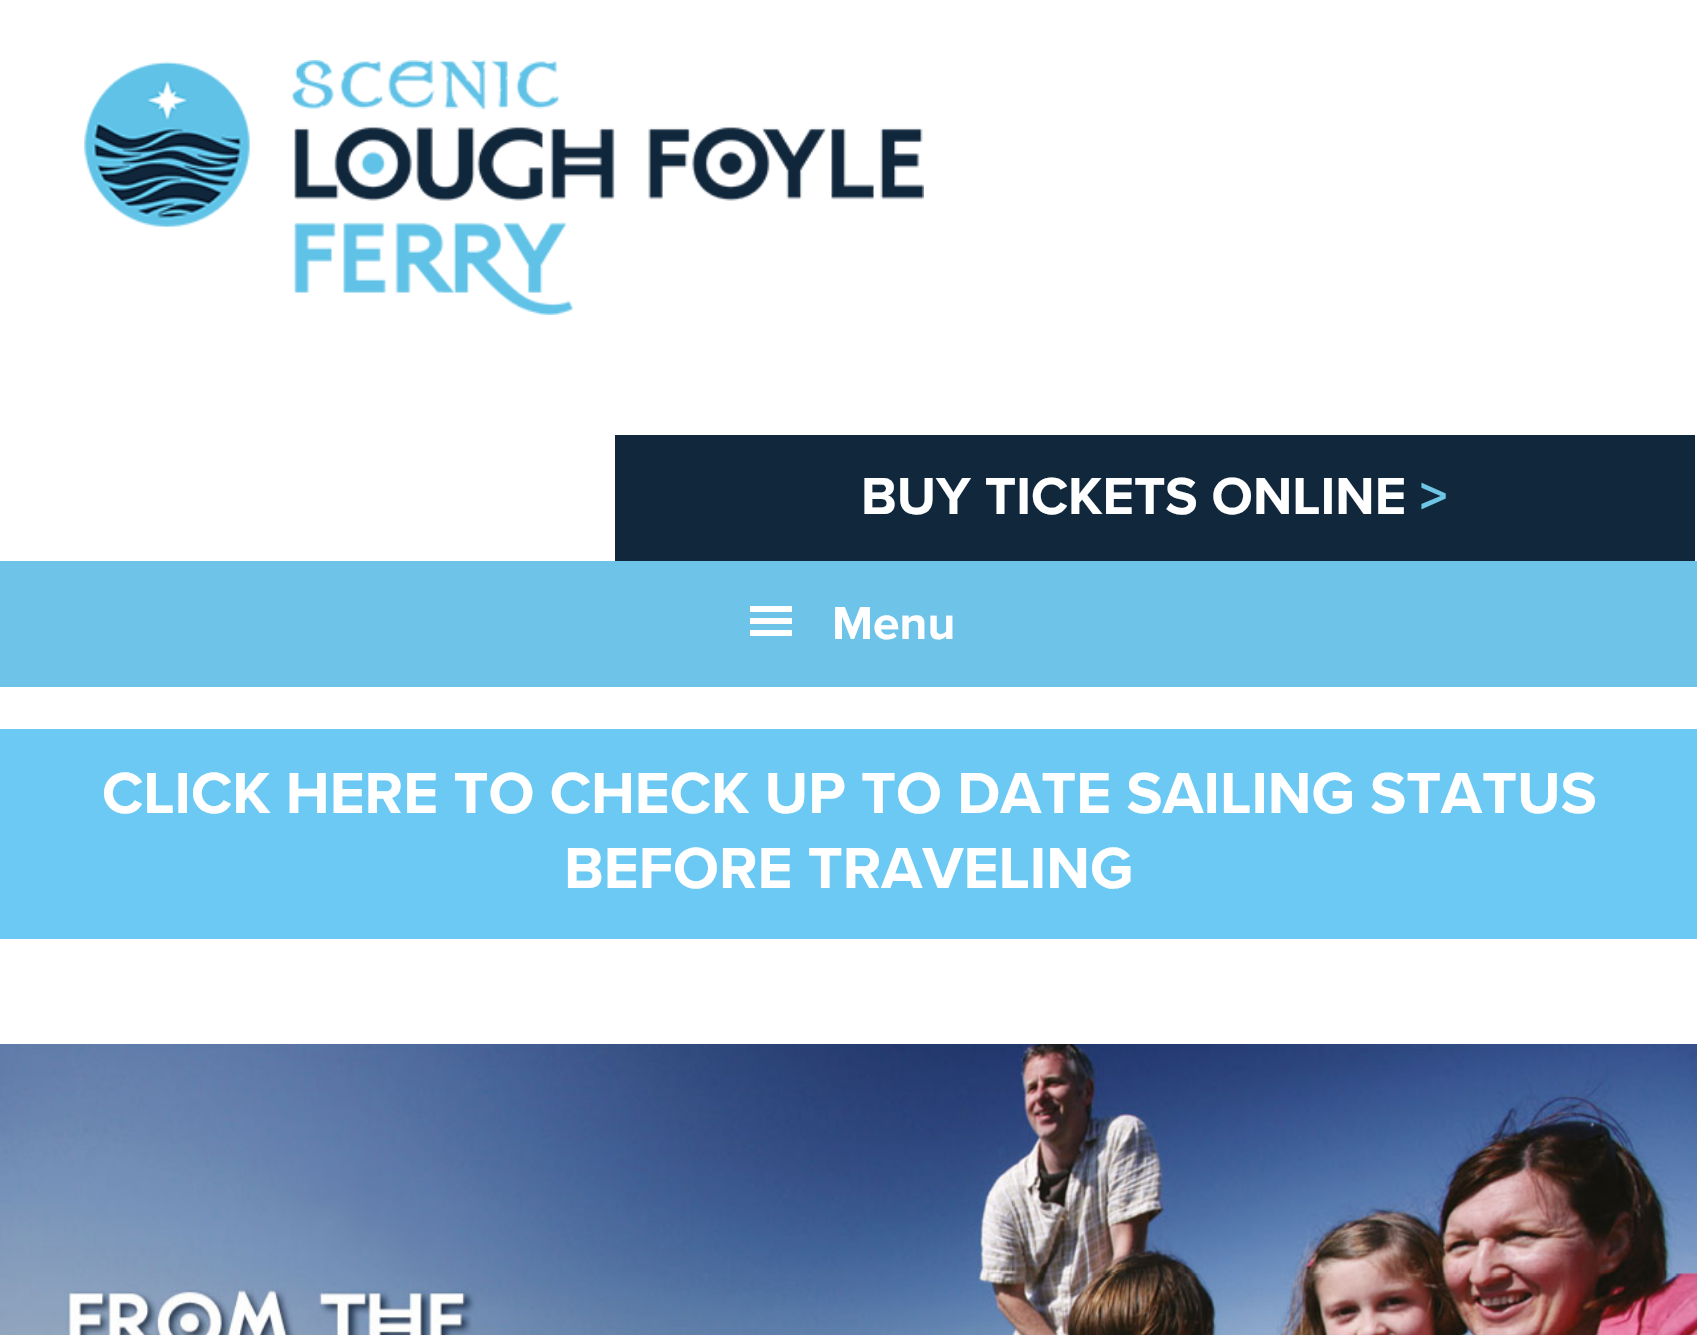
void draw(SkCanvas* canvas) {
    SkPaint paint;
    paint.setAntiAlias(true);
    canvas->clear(0xFFFFFFFF);
    canvas->drawImageRect(SkImages::DeferredFromEncodedData(SkData::MakeFromFileName("img1.png")), SkRect::MakeXYWH(84, 60, 840, 255), SkSamplingOptions());
    paint.setColor(0xFF11273B);
    canvas->drawRect(SkRect::MakeXYWH(615, 435, 1080, 126), paint);
    SkFont font1(fontMgr->matchFamilyStyle("Proxima Nova", SkFontStyle::Bold()), 54);
    font1.setSubpixel(true);
    paint.setColor(0xFFFFFFFF);
    canvas->drawString("BUY TICKETS ONLINE", 861, 514, font1, paint);
    paint.setColor(0xFF6EC5E6);
    canvas->drawString(">", 1420, 514, font1, paint);
    paint.setColor(0xFF6EC4E8);
    canvas->drawRect(SkRect::MakeXYWH(0, 561, 1697, 126), paint);
    paint.setColor(0xFFFFFFFF);
    canvas->drawPath(SkPathBuilder().moveTo(750, 636).lineTo(792, 636).lineTo(792, 630).lineTo(750, 630).close().moveTo(750, 606).lineTo(750, 612).lineTo(792, 612).lineTo(792, 606).close().moveTo(750, 624).lineTo(792, 624).lineTo(792, 618).lineTo(750, 618).close().detach(), paint);
    SkFont font2(fontMgr->matchFamilyStyle("Proxima Nova", SkFontStyle::Bold()), 48);
    font2.setSubpixel(true);
    canvas->drawString("Menu", 832, 639, font2, paint);
    paint.setColor(0xFF6CC9F3);
    canvas->drawRect(SkRect::MakeXYWH(0, 729, 1697, 210), paint);
    SkFont font3(fontMgr->matchFamilyStyle("Proxima Nova", SkFontStyle::Bold()), 60);
    font3.setSubpixel(true);
    paint.setColor(0xFFFFFFFF);
    canvas->drawString("CLICK HERE TO CHECK UP TO DATE SAILING STATUS", 102, 813, font3, paint);
    canvas->drawString("BEFORE TRAVELING", 564, 888, font3, paint);
    canvas->drawImageRect(SkImages::DeferredFromEncodedData(SkData::MakeFromFileName("img2.png")), SkRect::MakeXYWH(0, 1044, 1697, 291), SkSamplingOptions());
}
